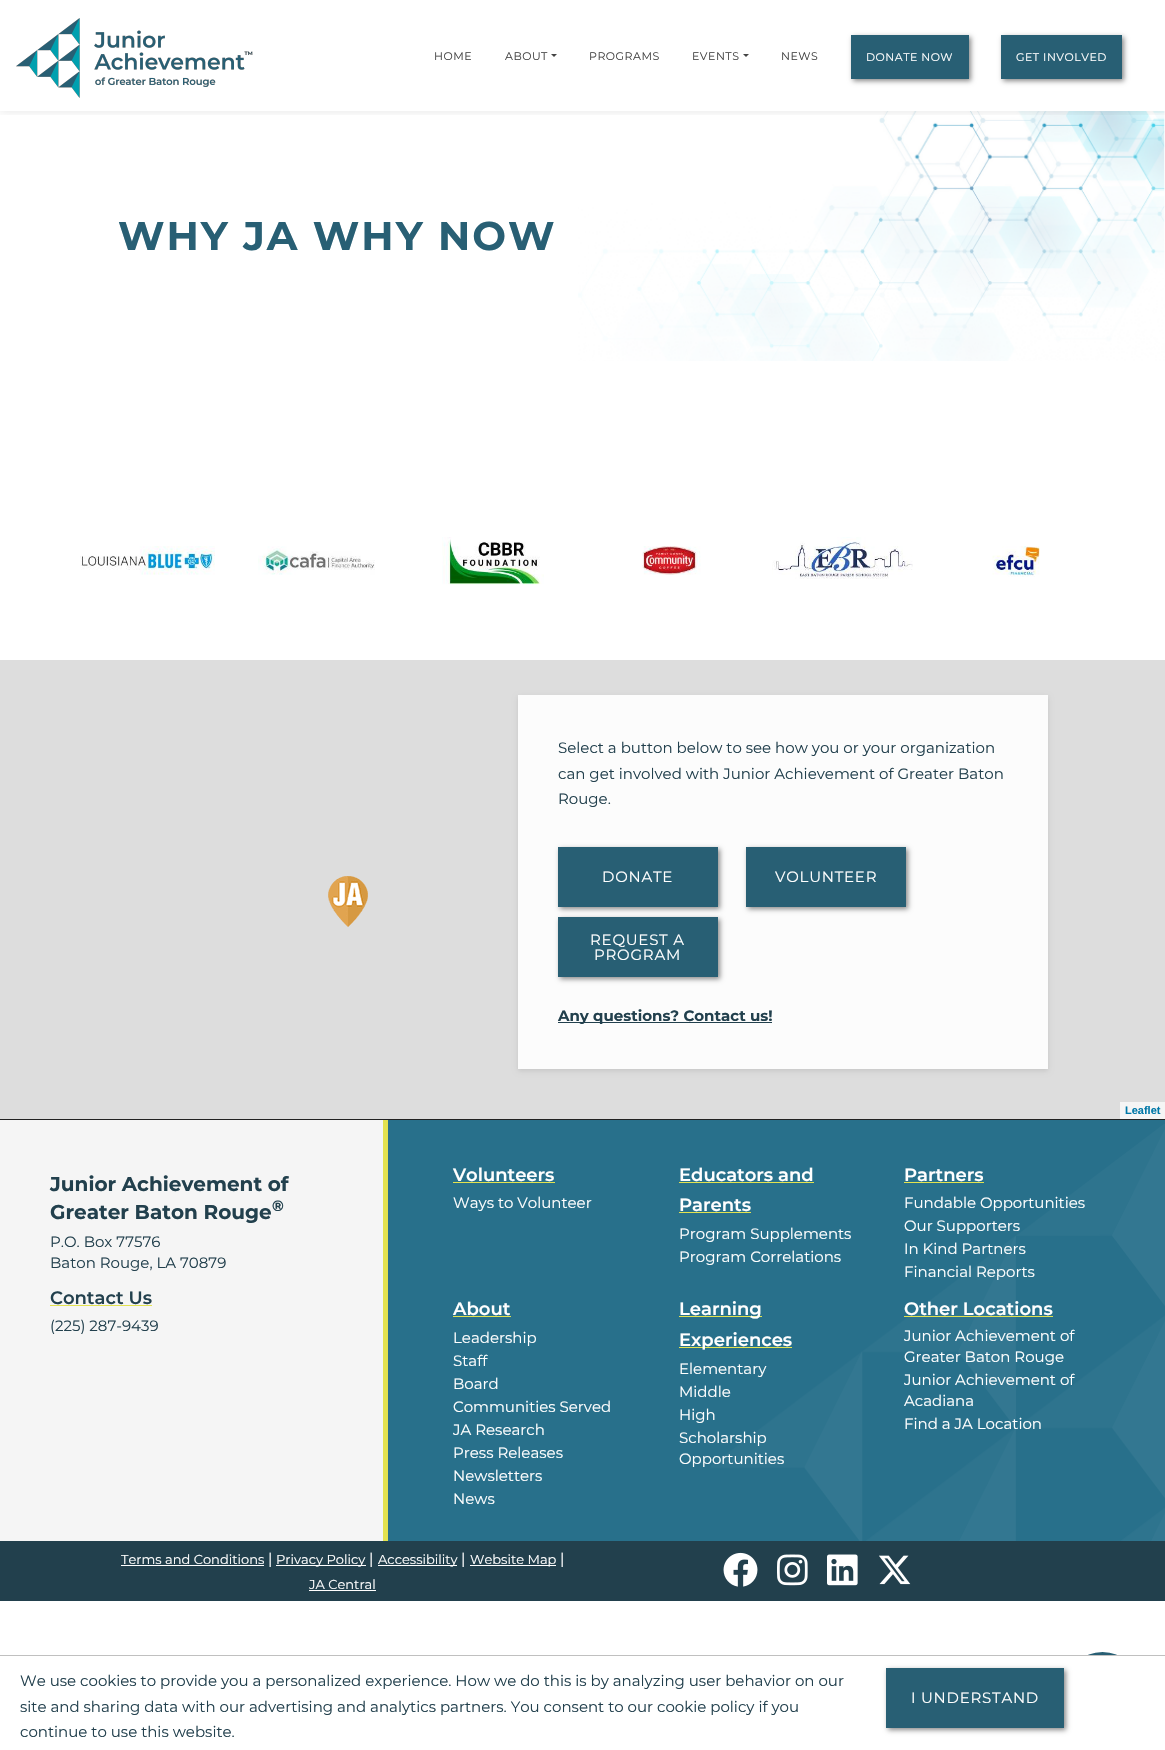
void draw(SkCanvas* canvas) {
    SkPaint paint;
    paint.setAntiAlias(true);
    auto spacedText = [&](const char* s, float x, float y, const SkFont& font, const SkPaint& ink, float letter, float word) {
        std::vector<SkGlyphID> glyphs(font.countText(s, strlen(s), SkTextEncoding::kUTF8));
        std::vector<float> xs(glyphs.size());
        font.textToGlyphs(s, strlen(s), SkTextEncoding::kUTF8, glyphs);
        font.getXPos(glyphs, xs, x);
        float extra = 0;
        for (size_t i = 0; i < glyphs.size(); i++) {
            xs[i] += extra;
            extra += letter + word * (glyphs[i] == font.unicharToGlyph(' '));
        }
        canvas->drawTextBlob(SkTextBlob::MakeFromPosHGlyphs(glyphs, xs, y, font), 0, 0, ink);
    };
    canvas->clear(0xFFFFFFFF);
    canvas->drawImageRect(SkImages::DeferredFromEncodedData(SkData::MakeFromFileName("img2.png")), SkRect::MakeXYWH(578, 111, 587, 250), SkSamplingOptions());
    canvas->save();
    canvas->clipRect(SkRect::MakeXYWH(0, 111, 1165, 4));
    paint.setColor(0x1A000000);
    paint.setMaskFilter(SkMaskFilter::MakeBlur(kNormal_SkBlurStyle, 5));
    canvas->drawRect(SkRect::MakeXYWH(0, 0, 1165, 111), paint);
    paint.setMaskFilter(nullptr);
    canvas->restore();
    canvas->drawImageRect(SkImages::DeferredFromEncodedData(SkData::MakeFromFileName("img1.png")), SkRect::MakeXYWH(16, 18, 237, 80), SkSamplingOptions());
    SkFont font1(fontMgr->matchFamilyStyle("Montserrat", SkFontStyle::Normal()), 11);
    font1.setSubpixel(true);
    paint.setColor(0xFF444444);
    spacedText("HOME", 434, 60, font1, paint, 0.5f, 0);
    spacedText("ABOUT", 505, 60, font1, paint, 0.5f, 0);
    canvas->drawPath(SkPathBuilder().moveTo(551, 54).lineTo(557, 54).lineTo(554, 57).close().detach(), paint);
    spacedText("PROGRAMS", 589, 60, font1, paint, 0.5f, 0);
    spacedText("EVENTS", 692, 60, font1, paint, 0.5f, 0);
    canvas->drawPath(SkPathBuilder().moveTo(743, 54).lineTo(749, 54).lineTo(746, 57).close().detach(), paint);
    spacedText("NEWS", 781, 60, font1, paint, 0.5f, 0);
    paint.setColor(0xFF888888);
    paint.setMaskFilter(SkMaskFilter::MakeBlur(kNormal_SkBlurStyle, 2.5f));
    canvas->drawRect(SkRect::MakeXYWH(853, 37, 118, 44), paint);
    paint.setMaskFilter(nullptr);
    paint.setColor(0xFF285F74);
    canvas->drawRect(SkRect::MakeXYWH(851, 35, 118, 44), paint);
    paint.setColor(0xFFFFFFFF);
    spacedText("DONATE NOW", 866, 61, font1, paint, 0.5f, 0);
    paint.setColor(0xFF888888);
    paint.setMaskFilter(SkMaskFilter::MakeBlur(kNormal_SkBlurStyle, 2.5f));
    canvas->drawRect(SkRect::MakeXYWH(1003, 37, 121, 44), paint);
    paint.setMaskFilter(nullptr);
    paint.setColor(0xFF285F74);
    canvas->drawRect(SkRect::MakeXYWH(1001, 35, 121, 44), paint);
    paint.setColor(0xFFFFFFFF);
    spacedText("GET INVOLVED", 1016, 61, font1, paint, 0.5f, 0);
    SkFont font2(fontMgr->matchFamilyStyle("Montserrat", SkFontStyle::Bold()), 40);
    font2.setSubpixel(true);
    paint.setColor(0xFF285F74);
    spacedText("WHY JA WHY NOW", 118, 250, font2, paint, 2, 0);
    canvas->drawImageRect(SkImages::DeferredFromEncodedData(SkData::MakeFromFileName("img3.png")), SkRect::MakeXYWH(80, 546, 135, 29), SkSamplingOptions());
    canvas->drawImageRect(SkImages::DeferredFromEncodedData(SkData::MakeFromFileName("img4.png")), SkRect::MakeXYWH(258, 546, 117, 29), SkSamplingOptions());
    canvas->drawImageRect(SkImages::DeferredFromEncodedData(SkData::MakeFromFileName("img5.png")), SkRect::MakeXYWH(442, 537, 102, 48), SkSamplingOptions());
    canvas->drawImageRect(SkImages::DeferredFromEncodedData(SkData::MakeFromFileName("img6.png")), SkRect::MakeXYWH(642, 546, 59, 29), SkSamplingOptions());
    canvas->drawImageRect(SkImages::DeferredFromEncodedData(SkData::MakeFromFileName("img7.png")), SkRect::MakeXYWH(772, 537, 141, 42), SkSamplingOptions());
    canvas->drawImageRect(SkImages::DeferredFromEncodedData(SkData::MakeFromFileName("img8.png")), SkRect::MakeXYWH(992, 546, 48, 31), SkSamplingOptions());
    paint.setColor(0xFF222222);
    canvas->drawRect(SkRect::MakeXYWH(0, 1119, 1165, 1), paint);
    paint.setColor(0xFFDDDDDD);
    canvas->drawRect(SkRect::MakeXYWH(0, 660, 1165, 459), paint);
    paint.setColor(0x1A000000);
    paint.setMaskFilter(SkMaskFilter::MakeBlur(kNormal_SkBlurStyle, 2.5f));
    canvas->drawRect(SkRect::MakeXYWH(518, 697, 530, 374), paint);
    paint.setMaskFilter(nullptr);
    paint.setColor(0xFFFCFCFC);
    canvas->drawRect(SkRect::MakeXYWH(518, 695, 530, 374), paint);
    SkFont font3(fontMgr->matchFamilyStyle("Montserrat", SkFontStyle::Normal()), 15);
    font3.setSubpixel(true);
    paint.setColor(0xFF22404D);
    canvas->drawString("Select a button below to see how you or your organization", 558, 753, font3, paint);
    canvas->drawString("can get involved with Junior Achievement of Greater Baton", 558, 779, font3, paint);
    canvas->drawString("Rouge.", 558, 804, font3, paint);
    paint.setColor(0xFF888888);
    paint.setMaskFilter(SkMaskFilter::MakeBlur(kNormal_SkBlurStyle, 2.5f));
    canvas->drawRect(SkRect::MakeXYWH(560, 849, 160, 60), paint);
    paint.setMaskFilter(nullptr);
    paint.setColor(0xFF285F74);
    canvas->drawRect(SkRect::MakeXYWH(558, 847, 160, 60), paint);
    paint.setColor(0xFFFFFFFF);
    spacedText("DONATE", 602, 882, font3, paint, 0.75f, 0);
    paint.setColor(0xFF888888);
    paint.setMaskFilter(SkMaskFilter::MakeBlur(kNormal_SkBlurStyle, 2.5f));
    canvas->drawRect(SkRect::MakeXYWH(748, 849, 160, 60), paint);
    paint.setMaskFilter(nullptr);
    paint.setColor(0xFF285F74);
    canvas->drawRect(SkRect::MakeXYWH(746, 847, 160, 60), paint);
    paint.setColor(0xFFFFFFFF);
    spacedText("VOLUNTEER", 775, 882, font3, paint, 0.75f, 0);
    paint.setColor(0xFF888888);
    paint.setMaskFilter(SkMaskFilter::MakeBlur(kNormal_SkBlurStyle, 2.5f));
    canvas->drawRect(SkRect::MakeXYWH(560, 919, 160, 60), paint);
    paint.setMaskFilter(nullptr);
    paint.setColor(0xFF285F74);
    canvas->drawRect(SkRect::MakeXYWH(558, 917, 160, 60), paint);
    paint.setColor(0xFFFFFFFF);
    spacedText("REQUEST A", 590, 945, font3, paint, 0.75f, 0);
    spacedText("PROGRAM", 594, 960, font3, paint, 0.75f, 0);
    paint.setColor(0xFF22404D);
    canvas->drawRect(SkRect::MakeXYWH(558, 1022, 214, 1), paint);
    SkFont font4(fontMgr->matchFamilyStyle("Montserrat", SkFontStyle::Bold()), 15);
    font4.setSubpixel(true);
    canvas->drawString("Any questions? Contact us!", 558, 1021, font4, paint);
    canvas->drawImageRect(SkImages::DeferredFromEncodedData(SkData::MakeFromFileName("img9.png")), SkRect::MakeXYWH(328, 876, 40, 51), SkSamplingOptions());
    paint.setColor(0xFFF5F5F5);
    canvas->drawRect(SkRect::MakeXYWH(1120, 1102, 45, 17), paint);
    SkFont font5(fontMgr->matchFamilyStyle("Liberation Sans", SkFontStyle::Bold()), 11);
    font5.setSubpixel(true);
    paint.setColor(0xFF0078A8);
    canvas->drawString("Leaflet", 1125, 1114, font5, paint);
    paint.setColor(0xFF28708B);
    canvas->drawRect(SkRect::MakeXYWH(388, 1120, 777, 421), paint);
    canvas->drawImageRect(SkImages::DeferredFromEncodedData(SkData::MakeFromFileName("img10.png")), SkRect::MakeXYWH(711, 1124, 454, 417), SkSamplingOptions());
    paint.setColor(0xFFF5F5F5);
    canvas->drawRect(SkRect::MakeXYWH(0, 1120, 383, 421), paint);
    paint.setColor(0xFFE3E24F);
    canvas->drawRect(SkRect::MakeXYWH(383, 1120, 5, 421), paint);
    SkFont font6(fontMgr->matchFamilyStyle("Montserrat", SkFontStyle::Bold()), 20);
    font6.setSubpixel(true);
    paint.setColor(0xFF22404D);
    canvas->drawString("Junior Achievement of", 50, 1191, font6, paint);
    canvas->drawString("Greater Baton Rouge", 50, 1219, font6, paint);
    canvas->drawString("®", 272, 1211, font4, paint);
    canvas->drawString("P.O. Box 77576", 50, 1247, font3, paint);
    canvas->drawString("Baton Rouge, LA 70879", 50, 1268, font3, paint);
    SkFont font7(fontMgr->matchFamilyStyle("Montserrat", SkFontStyle(600, SkFontStyle::kNormal_Width, SkFontStyle::kUpright_Slant)), 18);
    font7.setSubpixel(true);
    canvas->drawString("Contact Us", 50, 1304, font7, paint);
    paint.setColor(0xFFE3E24F);
    canvas->drawRect(SkRect::MakeXYWH(50, 1305, 102, 1), paint);
    paint.setColor(0xFF22404D);
    canvas->drawString("(225) 287-9439", 50, 1331, font3, paint);
    paint.setColor(0xFFFFFFFF);
    canvas->drawString("Volunteers", 453, 1181, font7, paint);
    paint.setColor(0xFFE3E24F);
    canvas->drawRect(SkRect::MakeXYWH(453, 1182, 102, 1), paint);
    paint.setColor(0xFFFFFFFF);
    canvas->drawString("Ways to Volunteer", 453, 1208, font3, paint);
    canvas->drawString("Educators and", 679, 1181, font7, paint);
    paint.setColor(0xFFE3E24F);
    canvas->drawRect(SkRect::MakeXYWH(679, 1182, 135, 1), paint);
    paint.setColor(0xFFFFFFFF);
    canvas->drawString("Parents", 679, 1211, font7, paint);
    paint.setColor(0xFFE3E24F);
    canvas->drawRect(SkRect::MakeXYWH(679, 1212, 72, 1), paint);
    paint.setColor(0xFFFFFFFF);
    canvas->drawString("Program Supplements", 679, 1239, font3, paint);
    canvas->drawString("Program Correlations", 679, 1262, font3, paint);
    canvas->drawString("Partners", 904, 1181, font7, paint);
    paint.setColor(0xFFE3E24F);
    canvas->drawRect(SkRect::MakeXYWH(904, 1182, 80, 1), paint);
    paint.setColor(0xFFFFFFFF);
    canvas->drawString("Fundable Opportunities", 904, 1208, font3, paint);
    canvas->drawString("Our Supporters", 904, 1231, font3, paint);
    canvas->drawString("In Kind Partners", 904, 1254, font3, paint);
    canvas->drawString("Financial Reports", 904, 1277, font3, paint);
    canvas->drawString("About", 453, 1315, font7, paint);
    paint.setColor(0xFFE3E24F);
    canvas->drawRect(SkRect::MakeXYWH(453, 1316, 58, 1), paint);
    paint.setColor(0xFFFFFFFF);
    canvas->drawString("Leadership", 453, 1343, font3, paint);
    canvas->drawString("Staff", 453, 1366, font3, paint);
    canvas->drawString("Board", 453, 1389, font3, paint);
    canvas->drawString("Communities Served", 453, 1412, font3, paint);
    canvas->drawString("JA Research", 453, 1435, font3, paint);
    canvas->drawString("Press Releases", 453, 1458, font3, paint);
    canvas->drawString("Newsletters", 453, 1481, font3, paint);
    canvas->drawString("News", 453, 1504, font3, paint);
    paint.setColor(0xFFE3E24F);
    canvas->drawRect(SkRect::MakeXYWH(679, 1316, 83, 1), paint);
    paint.setColor(0xFFFFFFFF);
    canvas->drawString("Learning", 679, 1315, font7, paint);
    paint.setColor(0xFFE3E24F);
    canvas->drawRect(SkRect::MakeXYWH(679, 1347, 113, 1), paint);
    paint.setColor(0xFFFFFFFF);
    canvas->drawString("Experiences", 679, 1346, font7, paint);
    canvas->drawString("Elementary", 679, 1374, font3, paint);
    canvas->drawString("Middle", 679, 1397, font3, paint);
    canvas->drawString("High", 679, 1420, font3, paint);
    canvas->drawString("Scholarship", 679, 1443, font3, paint);
    canvas->drawString("Opportunities", 679, 1464, font3, paint);
    canvas->drawString("Other Locations", 904, 1315, font7, paint);
    paint.setColor(0xFFE3E24F);
    canvas->drawRect(SkRect::MakeXYWH(904, 1316, 149, 1), paint);
    paint.setColor(0xFFFFFFFF);
    canvas->drawString("Junior Achievement of", 904, 1341, font3, paint);
    canvas->drawString("Greater Baton Rouge", 904, 1362, font3, paint);
    canvas->drawString("Junior Achievement of", 904, 1385, font3, paint);
    canvas->drawString("Acadiana", 904, 1406, font3, paint);
    canvas->drawString("Find a JA Location", 904, 1429, font3, paint);
    paint.setColor(0xFF22404D);
    canvas->drawRect(SkRect::MakeXYWH(0, 1541, 1165, 60), paint);
    SkFont font8(fontMgr->matchFamilyStyle("Montserrat", SkFontStyle::Normal()), 13);
    font8.setSubpixel(true);
    paint.setColor(0xFFFFFFFF);
    canvas->drawString("Terms and Conditions", 121, 1564, font8, paint);
    canvas->drawRect(SkRect::MakeXYWH(121, 1565, 143, 1), paint);
    canvas->drawString("|", 268, 1564, font3, paint);
    canvas->drawRect(SkRect::MakeXYWH(276, 1565, 90, 1), paint);
    canvas->drawString("Privacy Policy", 276, 1564, font8, paint);
    canvas->drawString("|", 369, 1564, font3, paint);
    canvas->drawRect(SkRect::MakeXYWH(378, 1565, 79, 1), paint);
    canvas->drawString("Accessibility", 378, 1564, font8, paint);
    canvas->drawString("|", 461, 1564, font3, paint);
    canvas->drawRect(SkRect::MakeXYWH(470, 1565, 86, 1), paint);
    canvas->drawString("Website Map", 470, 1564, font8, paint);
    canvas->drawString("|", 560, 1564, font3, paint);
    canvas->drawString("JA Central", 309, 1589, font8, paint);
    canvas->drawRect(SkRect::MakeXYWH(309, 1590, 67, 1), paint);
    canvas->drawImageRect(SkImages::DeferredFromEncodedData(SkData::MakeFromFileName("img11.png")), SkRect::MakeXYWH(723, 1552, 35, 35), SkSamplingOptions());
    canvas->drawImageRect(SkImages::DeferredFromEncodedData(SkData::MakeFromFileName("img12.png")), SkRect::MakeXYWH(777, 1554, 31, 32), SkSamplingOptions());
    canvas->drawImageRect(SkImages::DeferredFromEncodedData(SkData::MakeFromFileName("img13.png")), SkRect::MakeXYWH(827, 1554, 31, 32), SkSamplingOptions());
    canvas->drawImageRect(SkImages::DeferredFromEncodedData(SkData::MakeFromFileName("img14.png")), SkRect::MakeXYWH(879, 1555, 32, 30), SkSamplingOptions());
    paint.setColor(0xFF285F74);
    canvas->drawCircle(1102.5f, 1687.5f, 36.5f, paint);
    paint.setStyle(SkPaint::kStroke_Style);
    paint.setStrokeWidth(2);
    paint.setColor(0xFFFFFFFF);
    canvas->drawCircle(1102.5f, 1687.5f, 36.5f, paint);
    paint.setStyle(SkPaint::kFill_Style);
    canvas->drawRect(SkRect::MakeXYWH(1065, 1656, 75, 69), paint);
    paint.setColor(0xFFC0C0C0);
    canvas->drawRect(SkRect::MakeXYWH(0, 1655, 1165, 1), paint);
    paint.setColor(0xFF22404D);
    canvas->drawString("We use cookies to provide you a personalized experience. How we do this is by analyzing user behavior on our", 20, 1686, font3, paint);
    canvas->drawString("site and sharing data with our advertising and analytics partners. You consent to our cookie policy if you", 20, 1712, font3, paint);
    canvas->drawString("continue to use this website.", 20, 1737, font3, paint);
    paint.setColor(0xFF888888);
    paint.setMaskFilter(SkMaskFilter::MakeBlur(kNormal_SkBlurStyle, 2.5f));
    canvas->drawRect(SkRect::MakeXYWH(888, 1670, 178, 60), paint);
    paint.setMaskFilter(nullptr);
    paint.setColor(0xFF285F74);
    canvas->drawRect(SkRect::MakeXYWH(886, 1668, 178, 60), paint);
    paint.setColor(0xFFFFFFFF);
    spacedText("I UNDERSTAND", 911, 1703, font3, paint, 0.75f, 0);
}
